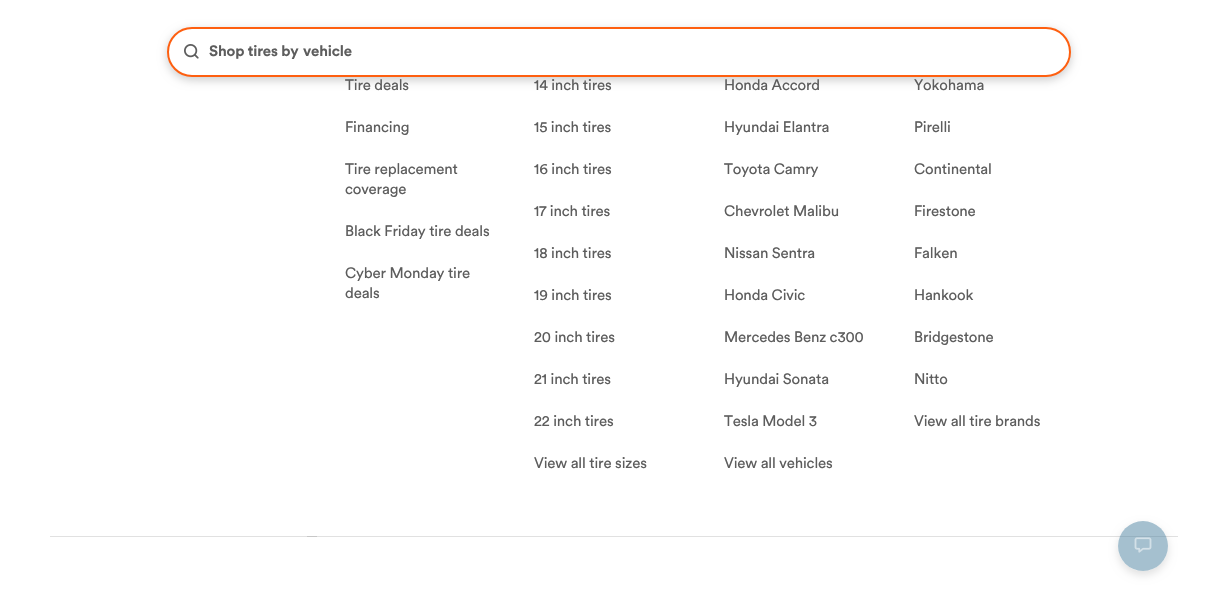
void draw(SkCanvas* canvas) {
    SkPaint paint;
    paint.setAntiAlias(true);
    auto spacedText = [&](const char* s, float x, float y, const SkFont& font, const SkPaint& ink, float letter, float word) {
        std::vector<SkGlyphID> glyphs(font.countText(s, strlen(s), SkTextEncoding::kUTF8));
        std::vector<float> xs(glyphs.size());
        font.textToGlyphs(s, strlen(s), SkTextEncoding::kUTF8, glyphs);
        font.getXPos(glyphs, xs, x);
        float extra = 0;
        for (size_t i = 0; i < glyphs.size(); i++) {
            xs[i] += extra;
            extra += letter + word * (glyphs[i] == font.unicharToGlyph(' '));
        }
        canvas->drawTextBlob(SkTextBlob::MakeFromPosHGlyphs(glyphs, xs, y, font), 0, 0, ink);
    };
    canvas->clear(0xFFFFFFFF);
    paint.setColor(0xFFE1E1E1);
    canvas->drawRect(SkRect::MakeXYWH(50, 536, 257, 1), paint);
    paint.setColor(0x33000000);
    paint.setMaskFilter(SkMaskFilter::MakeBlur(kNormal_SkBlurStyle, 5));
    canvas->drawRoundRect(SkRect::MakeXYWH(167, 30, 904, 50), 25, 25, paint);
    paint.setMaskFilter(nullptr);
    paint.setColor(0xFFFFFFFF);
    canvas->drawRoundRect(SkRect::MakeXYWH(168, 28, 902, 48), 24, 24, paint);
    paint.setStyle(SkPaint::kStroke_Style);
    paint.setStrokeWidth(2);
    paint.setColor(0xFFFE5F10);
    canvas->drawRoundRect(SkRect::MakeXYWH(168, 28, 902, 48), 24, 24, paint);
    canvas->drawImageRect(SkImages::DeferredFromEncodedData(SkData::MakeFromFileName("img1.png")), SkRect::MakeXYWH(184, 44, 15, 15), SkSamplingOptions());
    SkFont font1(fontMgr->matchFamilyStyle("Circular", SkFontStyle::Bold()), 15);
    font1.setSubpixel(true);
    paint.setStyle(SkPaint::kFill_Style);
    paint.setColor(0xFF5D5D5D);
    spacedText("Shop tires by", 209, 56, font1, paint, -0.15f, 0);
    spacedText("vehicle", 303, 56, font1, paint, -0.15f, 0);
    SkFont font2(fontMgr->matchFamilyStyle("Circular", SkFontStyle::Normal()), 15);
    font2.setSubpixel(true);
    spacedText("Tire deals", 345, 90, font2, paint, -0.15f, 0);
    spacedText("Financing", 345, 132, font2, paint, -0.15f, 0);
    spacedText("Tire replacement", 345, 174, font2, paint, -0.15f, 0);
    spacedText("coverage", 345, 194, font2, paint, -0.15f, 0);
    spacedText("Black Friday tire deals", 345, 236, font2, paint, -0.15f, 0);
    spacedText("Cyber Monday tire", 345, 278, font2, paint, -0.15f, 0);
    spacedText("deals", 345, 298, font2, paint, -0.15f, 0);
    spacedText("14 inch tires", 534, 90, font2, paint, -0.15f, 0);
    spacedText("15 inch tires", 534, 132, font2, paint, -0.15f, 0);
    spacedText("16 inch tires", 534, 174, font2, paint, -0.15f, 0);
    spacedText("17 inch tires", 534, 216, font2, paint, -0.15f, 0);
    spacedText("18 inch tires", 534, 258, font2, paint, -0.15f, 0);
    spacedText("19 inch tires", 534, 300, font2, paint, -0.15f, 0);
    spacedText("20 inch tires", 534, 342, font2, paint, -0.15f, 0);
    spacedText("21 inch tires", 534, 384, font2, paint, -0.15f, 0);
    spacedText("22 inch tires", 534, 426, font2, paint, -0.15f, 0);
    spacedText("View all tire sizes", 534, 468, font2, paint, -0.15f, 0);
    spacedText("Honda Accord", 724, 90, font2, paint, -0.15f, 0);
    spacedText("Hyundai Elantra", 724, 132, font2, paint, -0.15f, 0);
    spacedText("Toyota Camry", 724, 174, font2, paint, -0.15f, 0);
    spacedText("Chevrolet Malibu", 724, 216, font2, paint, -0.15f, 0);
    spacedText("Nissan Sentra", 724, 258, font2, paint, -0.15f, 0);
    spacedText("Honda Civic", 724, 300, font2, paint, -0.15f, 0);
    spacedText("Mercedes Benz c300", 724, 342, font2, paint, -0.15f, 0);
    spacedText("Hyundai Sonata", 724, 384, font2, paint, -0.15f, 0);
    spacedText("Tesla Model 3", 724, 426, font2, paint, -0.15f, 0);
    spacedText("View all vehicles", 724, 468, font2, paint, -0.15f, 0);
    spacedText("Yokohama", 914, 90, font2, paint, -0.15f, 0);
    spacedText("Pirelli", 914, 132, font2, paint, -0.15f, 0);
    spacedText("Continental", 914, 174, font2, paint, -0.15f, 0);
    spacedText("Firestone", 914, 216, font2, paint, -0.15f, 0);
    spacedText("Falken", 914, 258, font2, paint, -0.15f, 0);
    spacedText("Hankook", 914, 300, font2, paint, -0.15f, 0);
    spacedText("Bridgestone", 914, 342, font2, paint, -0.15f, 0);
    spacedText("Nitto", 914, 384, font2, paint, -0.15f, 0);
    spacedText("View all tire brands", 914, 426, font2, paint, -0.15f, 0);
    paint.setColor(0xFFE1E1E1);
    canvas->drawRect(SkRect::MakeXYWH(317, 536, 861, 1), paint);
    paint.setColor(0xFFC7C7C7);
    canvas->drawRect(SkRect::MakeXYWH(307, 536, 10, 1), paint);
    canvas->save();
    canvas->clipPath(SkPathBuilder(SkPathFillType::kEvenOdd).moveTo(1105, 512).lineTo(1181, 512).lineTo(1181, 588).lineTo(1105, 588).close().moveTo(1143, 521).cubicTo(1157, 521, 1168, 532, 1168, 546).cubicTo(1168, 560, 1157, 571, 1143, 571).cubicTo(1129, 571, 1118, 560, 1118, 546).cubicTo(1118, 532, 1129, 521, 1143, 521).close().detach(), true);
    paint.setColor(0x1F000000);
    paint.setMaskFilter(SkMaskFilter::MakeBlur(kNormal_SkBlurStyle, 4));
    canvas->drawRoundRect(SkRect::MakeXYWH(1118, 525, 50, 50), 25, 25, paint);
    paint.setMaskFilter(nullptr);
    canvas->restore();
    paint.setColor(0x804B819F);
    canvas->drawCircle(1143, 546, 25, paint);
    canvas->drawImageRect(SkImages::DeferredFromEncodedData(SkData::MakeFromFileName("img2.png")), SkRect::MakeXYWH(1134, 537, 18, 16), SkSamplingOptions());
}
